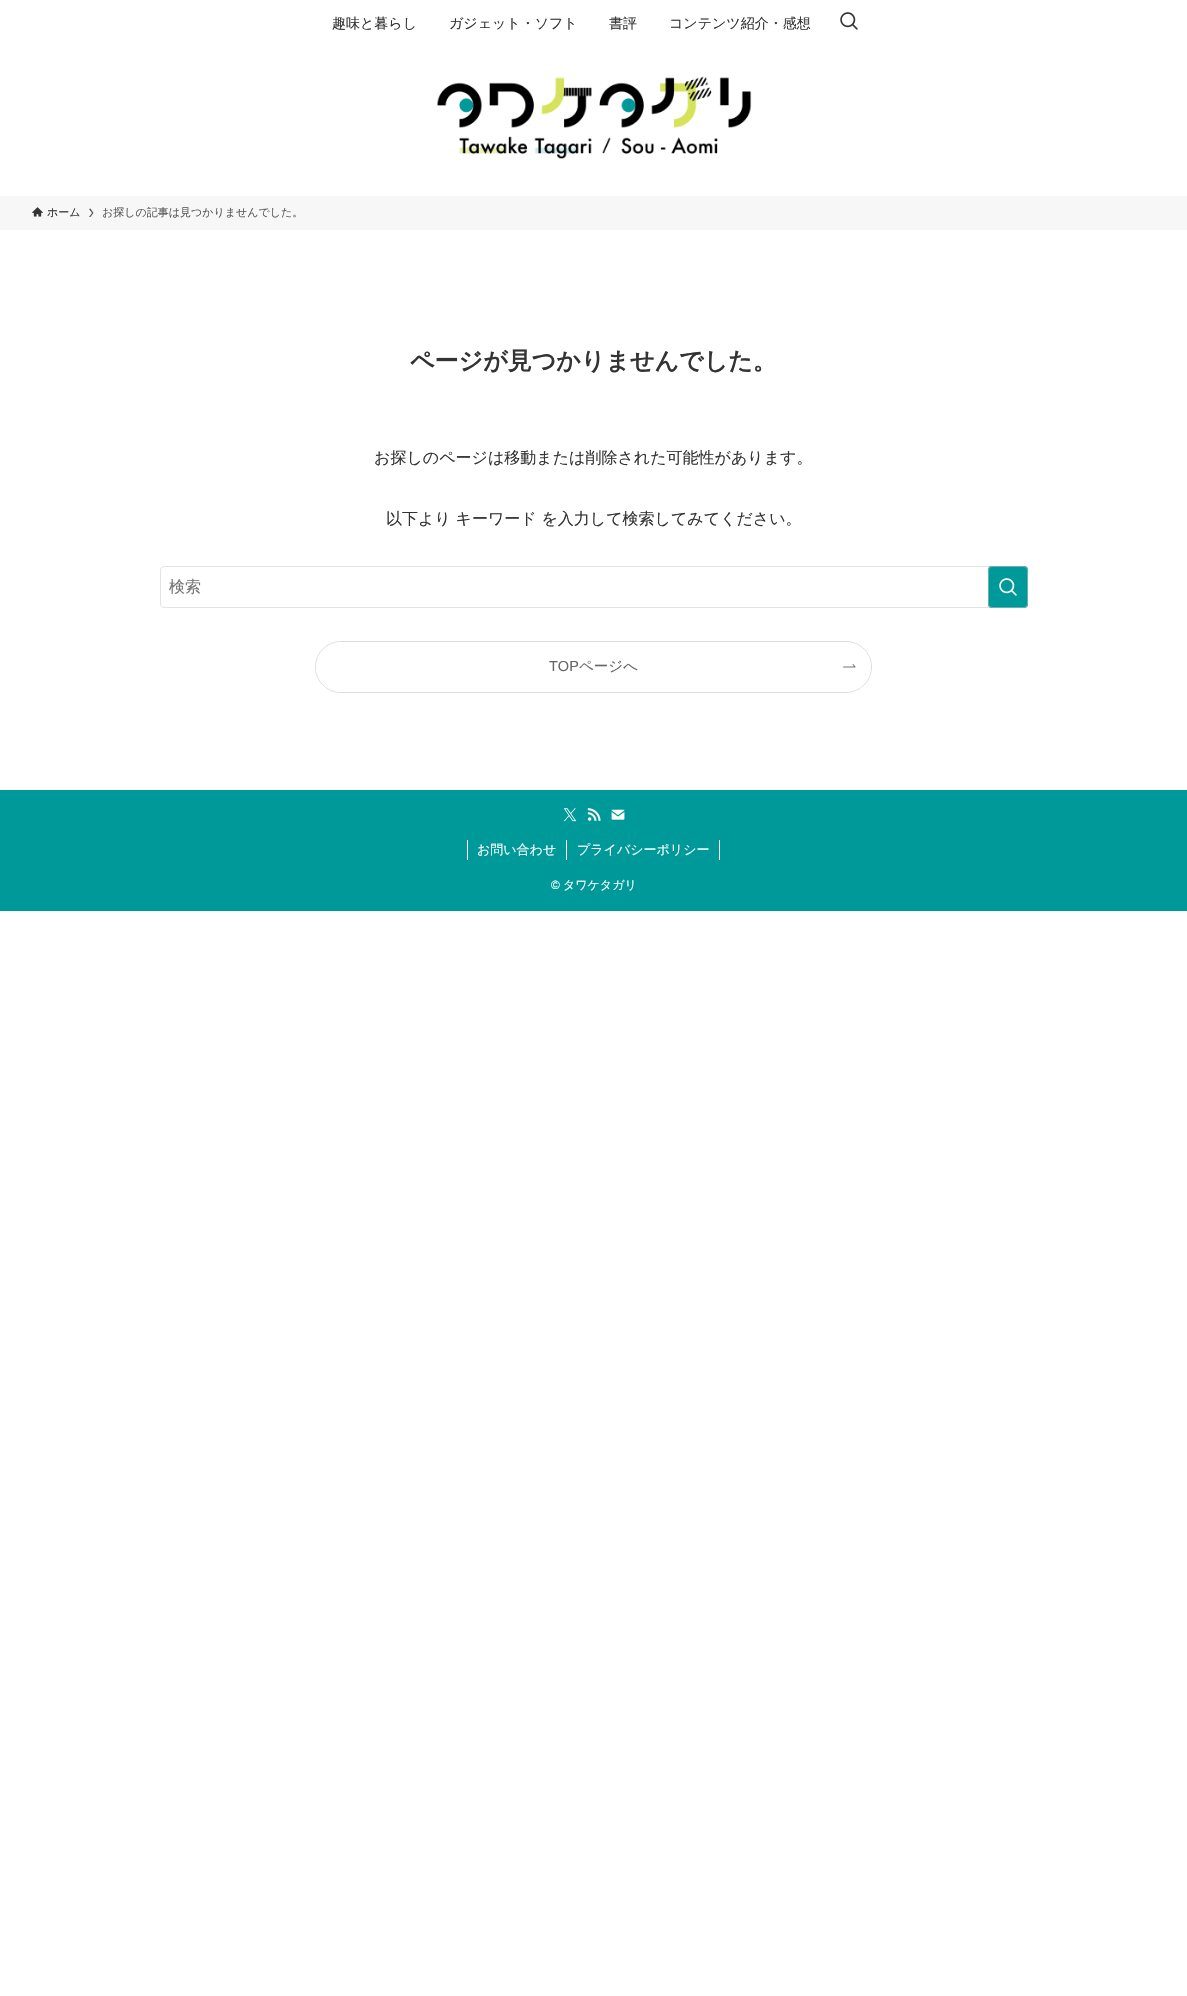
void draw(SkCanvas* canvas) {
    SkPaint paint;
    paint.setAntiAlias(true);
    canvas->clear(0xFFFFFFFF);
    SkFont font1(fontMgr->matchFamilyStyle("WenQuanYi Zen Hei", SkFontStyle(500, SkFontStyle::kNormal_Width, SkFontStyle::kUpright_Slant)), 14);
    font1.setSubpixel(true);
    paint.setColor(0xFF333333);
    canvas->drawString("趣味と暮らし", 332, 28, font1, paint);
    canvas->drawString("ガジェット・ソフト", 449, 28, font1, paint);
    canvas->drawString("書評", 609, 28, font1, paint);
    canvas->drawString("コンテンツ紹介・感想", 669, 28, font1, paint);
    canvas->drawImageRect(SkImages::DeferredFromEncodedData(SkData::MakeFromFileName("img1.png")), SkRect::MakeXYWH(840, 12, 18, 18), SkSamplingOptions());
    canvas->drawImageRect(SkImages::DeferredFromEncodedData(SkData::MakeFromFileName("img2.png")), SkRect::MakeXYWH(436, 76, 316, 83), SkSamplingOptions());
    paint.setColor(0xFFF7F7F7);
    canvas->drawRect(SkRect::MakeXYWH(0, 196, 1187, 34), paint);
    canvas->drawImageRect(SkImages::DeferredFromEncodedData(SkData::MakeFromFileName("img3.png")), SkRect::MakeXYWH(32, 207, 11, 10), SkSamplingOptions());
    SkFont font2(fontMgr->matchFamilyStyle("WenQuanYi Zen Hei", SkFontStyle(500, SkFontStyle::kNormal_Width, SkFontStyle::kUpright_Slant)), 11);
    font2.setSubpixel(true);
    paint.setColor(0xFF333333);
    canvas->drawString("ホーム", 47, 216, font2, paint);
    paint.setColor(0xFF5A5A5A);
    canvas->drawPath(SkPathBuilder().moveTo(90.5f, 208.5f).lineTo(89, 209).lineTo(92, 213).lineTo(89, 217).lineTo(90.5f, 217).lineTo(93.5f, 213).close().detach(), paint);
    canvas->drawString("お探しの記事は見つかりませんでした。", 102, 216, font2, paint);
    SkFont font3(fontMgr->matchFamilyStyle("WenQuanYi Zen Hei", SkFontStyle::Bold()), 24);
    font3.setSubpixel(true);
    paint.setColor(0xFF333333);
    canvas->drawString("ページが見つかりませんでした。", 410, 369, font3, paint);
    SkFont font4(fontMgr->matchFamilyStyle("WenQuanYi Zen Hei", SkFontStyle(500, SkFontStyle::kNormal_Width, SkFontStyle::kUpright_Slant)), 16);
    font4.setSubpixel(true);
    canvas->drawString("お探しのページは移動または削除された可能性があります。", 374, 463, font4, paint);
    canvas->drawString("以下より キーワード を入力して検索してみてください。", 386, 524, font4, paint);
    paint.setStyle(SkPaint::kStroke_Style);
    paint.setStrokeWidth(1);
    paint.setColor(0xFFE3E3E3);
    canvas->drawRoundRect(SkRect::MakeXYWH(160.5f, 566.5f, 867, 41), 3.5f, 3.5f, paint);
    paint.setStyle(SkPaint::kFill_Style);
    paint.setColor(0xFF757575);
    canvas->drawString("検索", 169, 592, font4, paint);
    paint.setColor(0xFF009999);
    canvas->drawRoundRect(SkRect::MakeXYWH(988, 566, 40, 42), 4, 4, paint);
    paint.setStyle(SkPaint::kStroke_Style);
    paint.setColor(0x80C7C7C7);
    canvas->drawRoundRect(SkRect::MakeXYWH(988.5f, 566.5f, 39, 41), 3.5f, 3.5f, paint);
    canvas->drawImageRect(SkImages::DeferredFromEncodedData(SkData::MakeFromFileName("img4.png")), SkRect::MakeXYWH(999, 578, 18, 18), SkSamplingOptions());
    paint.setColor(0xFFDCDCDC);
    canvas->drawRoundRect(SkRect::MakeXYWH(315.5f, 641.5f, 556, 51), 25.5f, 25.5f, paint);
    paint.setStyle(SkPaint::kFill_Style);
    paint.setColor(0xFFFFFFFF);
    canvas->drawRoundRect(SkRect::MakeXYWH(316, 642, 555, 50), 25, 25, paint);
    SkFont font5(fontMgr->matchFamilyStyle("Liberation Sans", SkFontStyle::Normal()), 14.5f);
    font5.setSubpixel(true);
    paint.setColor(0xFF666666);
    canvas->drawString("TOP", 549, 671, font5, paint);
    SkFont font6(fontMgr->matchFamilyStyle("WenQuanYi Zen Hei", SkFontStyle(500, SkFontStyle::kNormal_Width, SkFontStyle::kUpright_Slant)), 14.5f);
    font6.setSubpixel(true);
    canvas->drawString("ページへ", 579, 671, font6, paint);
    canvas->drawImageRect(SkImages::DeferredFromEncodedData(SkData::MakeFromFileName("img5.png")), SkRect::MakeXYWH(843, 664, 13, 4), SkSamplingOptions());
    paint.setColor(0xFF009999);
    canvas->drawRect(SkRect::MakeXYWH(0, 790, 1187, 121), paint);
    canvas->drawImageRect(SkImages::DeferredFromEncodedData(SkData::MakeFromFileName("img6.png")), SkRect::MakeXYWH(563, 808, 14, 14), SkSamplingOptions());
    canvas->drawImageRect(SkImages::DeferredFromEncodedData(SkData::MakeFromFileName("img7.png")), SkRect::MakeXYWH(587, 808, 14, 13), SkSamplingOptions());
    canvas->drawImageRect(SkImages::DeferredFromEncodedData(SkData::MakeFromFileName("img8.png")), SkRect::MakeXYWH(611, 809, 14, 11), SkSamplingOptions());
    paint.setColor(0xFFFEFEFE);
    canvas->drawRect(SkRect::MakeXYWH(566, 840, 1, 20), paint);
    canvas->drawRect(SkRect::MakeXYWH(467, 840, 1, 20), paint);
    SkFont font7(fontMgr->matchFamilyStyle("WenQuanYi Zen Hei", SkFontStyle(500, SkFontStyle::kNormal_Width, SkFontStyle::kUpright_Slant)), 13);
    font7.setSubpixel(true);
    canvas->drawString("お問い合わせ", 477, 854, font7, paint);
    canvas->drawRect(SkRect::MakeXYWH(719, 840, 1, 20), paint);
    canvas->drawString("プライバシーポリシー", 577, 854, font7, paint);
    SkFont font8(fontMgr->matchFamilyStyle("Liberation Sans", SkFontStyle::Normal()), 12);
    font8.setSubpixel(true);
    canvas->drawString("©", 551, 889, font8, paint);
    SkFont font9(fontMgr->matchFamilyStyle("WenQuanYi Zen Hei", SkFontStyle(500, SkFontStyle::kNormal_Width, SkFontStyle::kUpright_Slant)), 12);
    font9.setSubpixel(true);
    canvas->drawString("タワケタガリ", 563, 889, font9, paint);
}
